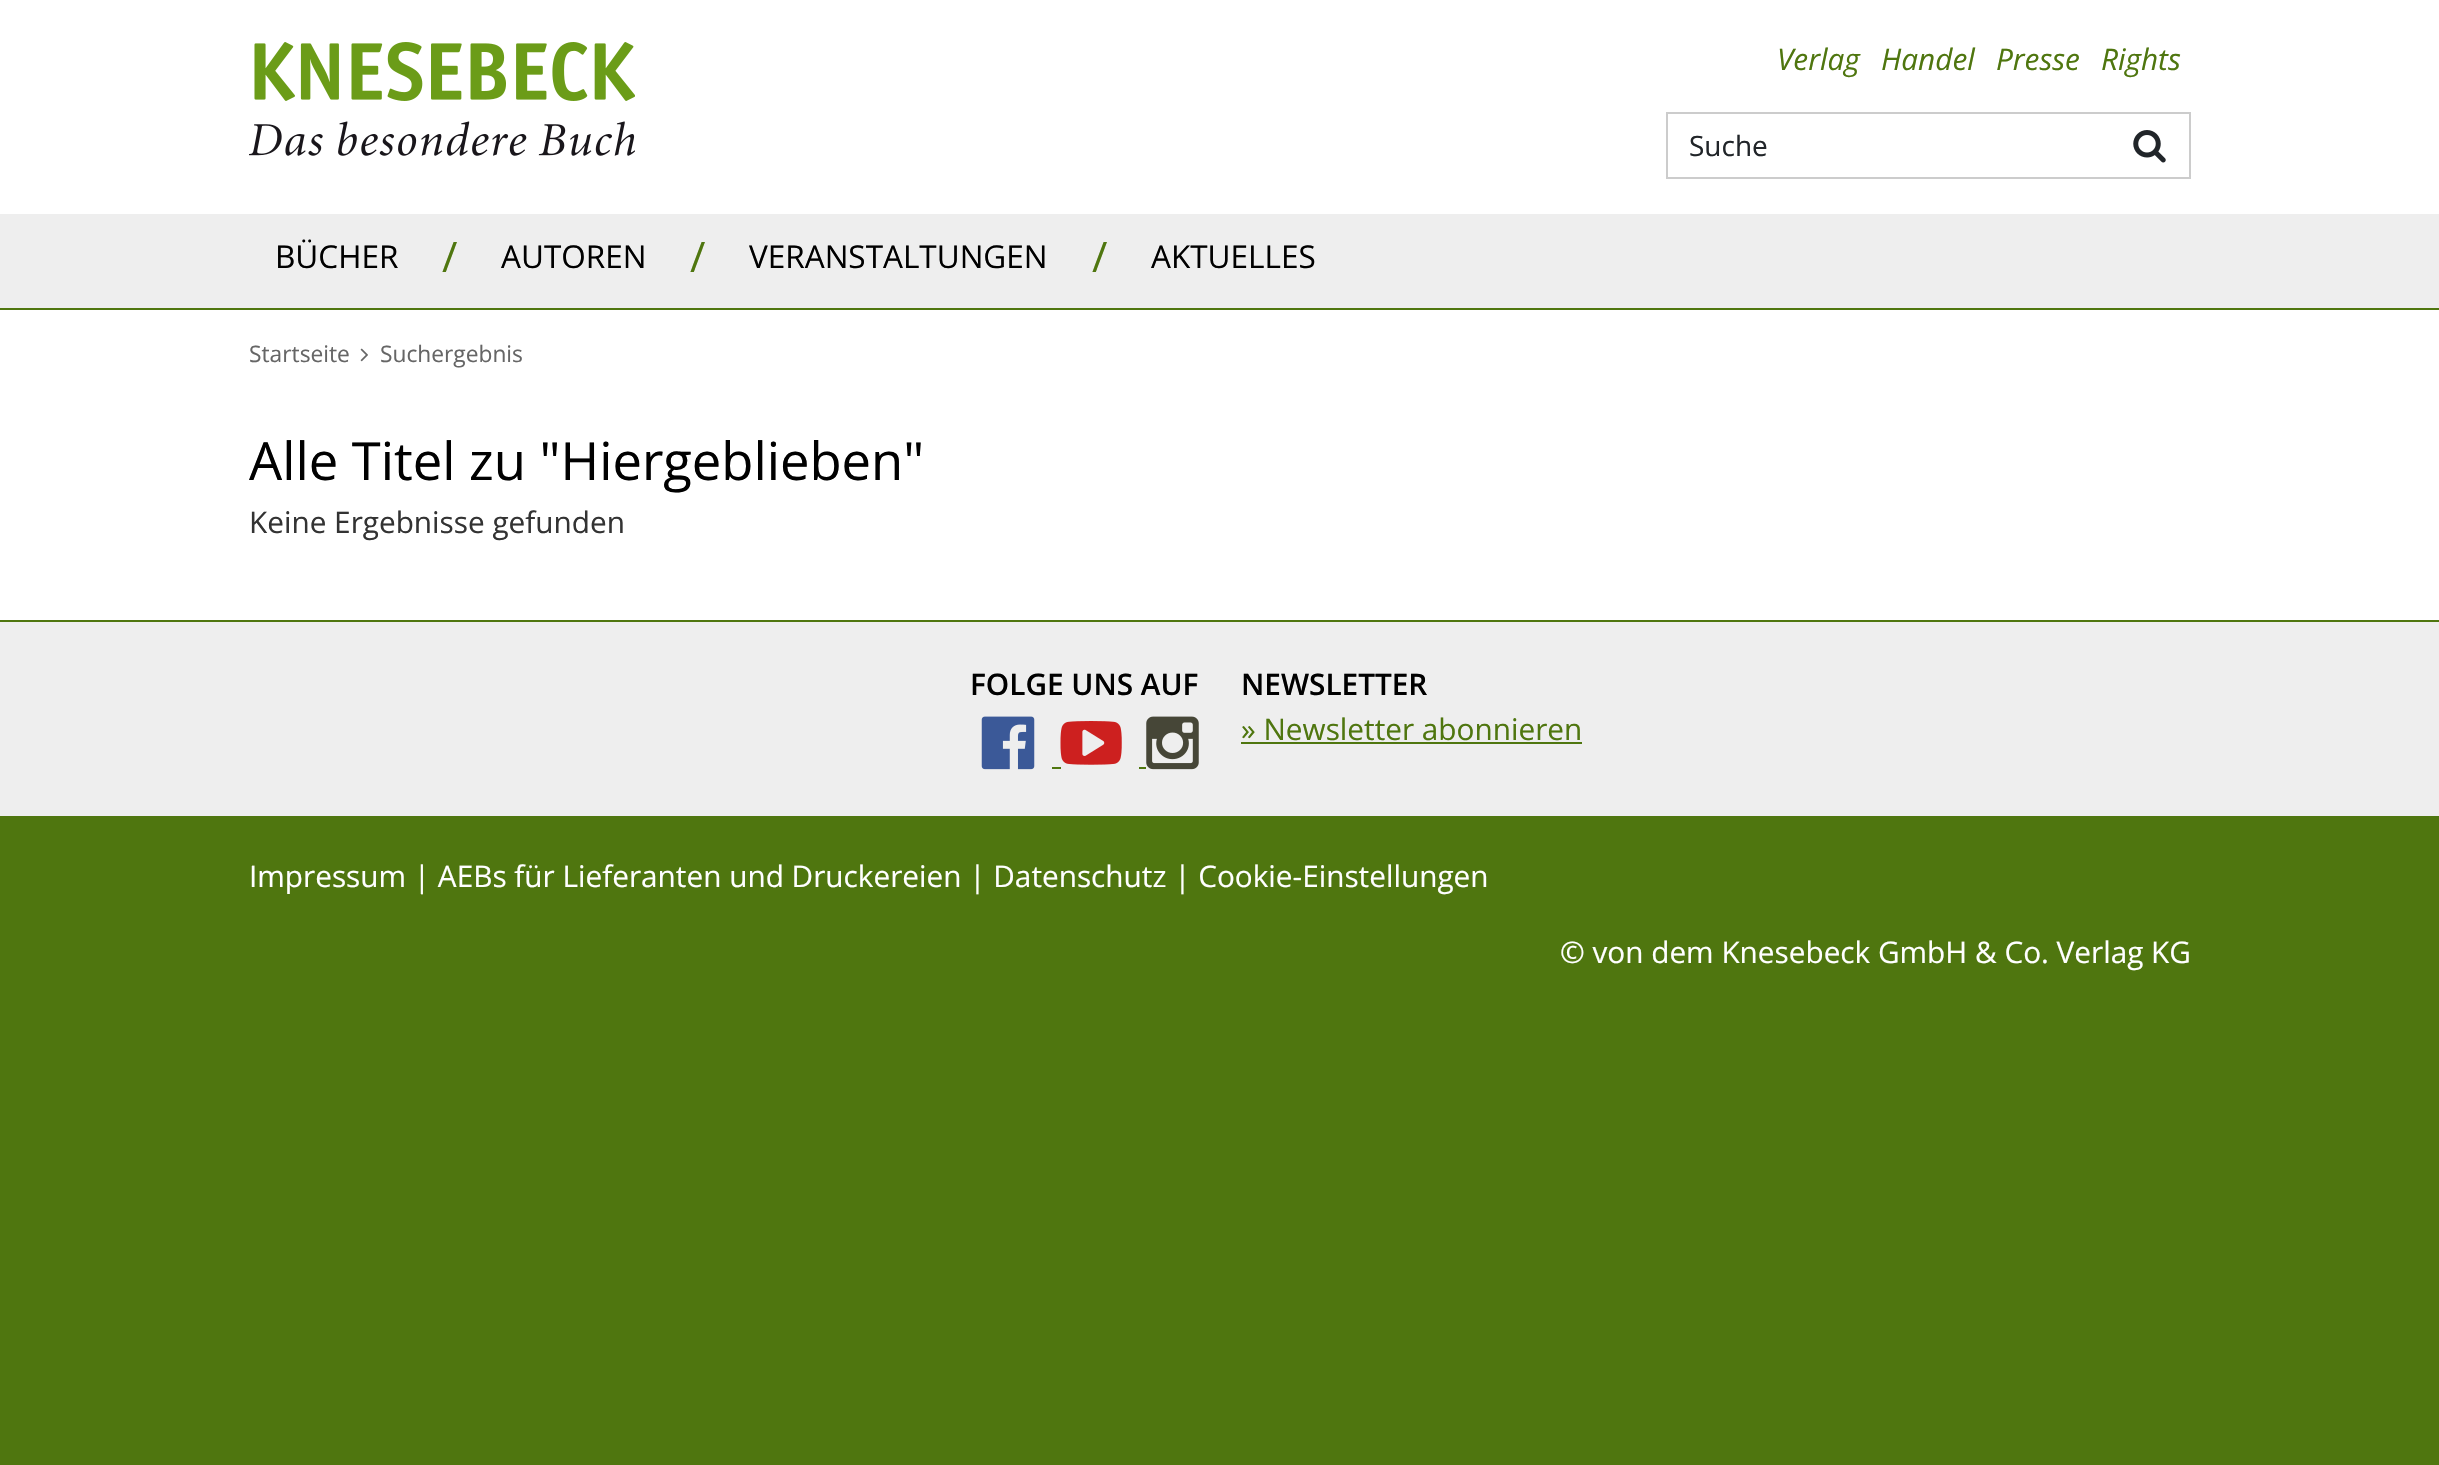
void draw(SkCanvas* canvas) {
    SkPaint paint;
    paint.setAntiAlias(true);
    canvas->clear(0xFF4F760F);
    paint.setColor(0xFFFFFFFF);
    canvas->drawRect(SkRect::MakeXYWH(0, 0, 2439, 620), paint);
    canvas->drawImageRect(SkImages::DeferredFromEncodedData(SkData::MakeFromFileName("img1.png")), SkRect::MakeXYWH(249, 42, 386, 114), SkSamplingOptions());
    SkFont font1(fontMgr->matchFamilyStyle("Open Sans", SkFontStyle::Italic()), 29.75f);
    font1.setSubpixel(true);
    paint.setColor(0xFF4F760F);
    canvas->drawString("Verlag", 1777, 70, font1, paint);
    canvas->drawString("Handel", 1881, 70, font1, paint);
    canvas->drawString("Presse", 1996, 70, font1, paint);
    canvas->drawString("Rights", 2101, 70, font1, paint);
    paint.setStyle(SkPaint::kStroke_Style);
    paint.setStrokeWidth(2);
    paint.setColor(0xFFCCCCCC);
    canvas->drawRect(SkRect::MakeXYWH(1667, 113, 523, 65), paint);
    SkFont font2(fontMgr->matchFamilyStyle("Open Sans", SkFontStyle::Normal()), 28);
    font2.setSubpixel(true);
    paint.setStyle(SkPaint::kFill_Style);
    paint.setColor(0xFF212529);
    canvas->drawString("Suche", 1689, 156, font2, paint);
    canvas->drawImageRect(SkImages::DeferredFromEncodedData(SkData::MakeFromFileName("img2.png")), SkRect::MakeXYWH(2133, 130, 33, 33), SkSamplingOptions());
    paint.setColor(0xFFEEEEEE);
    canvas->drawRect(SkRect::MakeXYWH(0, 214, 2439, 94), paint);
    paint.setColor(0xFF4F760F);
    canvas->drawRect(SkRect::MakeXYWH(0, 308, 2439, 2), paint);
    SkFont font3(fontMgr->matchFamilyStyle("Open Sans", SkFontStyle::Normal()), 31.5f);
    font3.setSubpixel(true);
    paint.setColor(0xFF000000);
    canvas->drawString("BÜCHER", 275, 268, font3, paint);
    SkFont font4(fontMgr->matchFamilyStyle("Open Sans", SkFontStyle::Normal()), 42);
    font4.setSubpixel(true);
    paint.setColor(0xFF4F760F);
    canvas->drawString("/", 442, 272, font4, paint);
    paint.setColor(0xFF000000);
    canvas->drawString("AUTOREN", 501, 268, font3, paint);
    paint.setColor(0xFF4F760F);
    canvas->drawString("/", 690, 272, font4, paint);
    paint.setColor(0xFF000000);
    canvas->drawString("VERANSTALTUNGEN", 749, 268, font3, paint);
    paint.setColor(0xFF4F760F);
    canvas->drawString("/", 1092, 272, font4, paint);
    paint.setColor(0xFF000000);
    canvas->drawString("AKTUELLES", 1151, 268, font3, paint);
    SkFont font5(fontMgr->matchFamilyStyle("Open Sans", SkFontStyle::Normal()), 22.75f);
    font5.setSubpixel(true);
    paint.setColor(0xFF666666);
    canvas->drawString("Startseite", 249, 362, font5, paint);
    canvas->drawImageRect(SkImages::DeferredFromEncodedData(SkData::MakeFromFileName("img3.png")), SkRect::MakeXYWH(360, 348, 8, 14), SkSamplingOptions());
    canvas->drawString("Suchergebnis", 380, 362, font5, paint);
    SkFont font6(fontMgr->matchFamilyStyle("Open Sans", SkFontStyle::Normal()), 52.5f);
    font6.setSubpixel(true);
    paint.setColor(0xFF000000);
    canvas->drawString("Alle Titel zu \"Hiergeblieben\"", 249, 480, font6, paint);
    SkFont font7(fontMgr->matchFamilyStyle("Open Sans", SkFontStyle::Normal()), 29.75f);
    font7.setSubpixel(true);
    paint.setColor(0xFF333333);
    canvas->drawString("Keine Ergebnisse gefunden", 249, 533, font7, paint);
    paint.setColor(0xFFEEEEEE);
    canvas->drawRect(SkRect::MakeXYWH(0, 622, 2439, 194), paint);
    SkFont font8(fontMgr->matchFamilyStyle("Open Sans", SkFontStyle(600, SkFontStyle::kNormal_Width, SkFontStyle::kUpright_Slant)), 29.75f);
    font8.setSubpixel(true);
    paint.setColor(0xFF000000);
    canvas->drawString("FOLGE UNS AUF", 970, 695, font8, paint);
    canvas->drawImageRect(SkImages::DeferredFromEncodedData(SkData::MakeFromFileName("img4.png")), SkRect::MakeXYWH(981, 716, 54, 54), SkSamplingOptions());
    paint.setColor(0xFF4F760F);
    canvas->drawRect(SkRect::MakeXYWH(1052, 767, 9, 2), paint);
    canvas->drawImageRect(SkImages::DeferredFromEncodedData(SkData::MakeFromFileName("img5.png")), SkRect::MakeXYWH(1060, 721, 62, 44), SkSamplingOptions());
    canvas->drawRect(SkRect::MakeXYWH(1139, 767, 7, 2), paint);
    canvas->drawImageRect(SkImages::DeferredFromEncodedData(SkData::MakeFromFileName("img6.png")), SkRect::MakeXYWH(1146, 716, 53, 54), SkSamplingOptions());
    paint.setColor(0xFF000000);
    canvas->drawString("NEWSLETTER", 1241, 695, font8, paint);
    paint.setColor(0xFF4F760F);
    canvas->drawString("» Newsletter abonnieren", 1241, 740, font7, paint);
    canvas->drawRect(SkRect::MakeXYWH(1241, 742, 341, 2), paint);
    paint.setColor(0xFFFFFFFF);
    canvas->drawString("Impressum | AEBs für Lieferanten und Druckereien | Datenschutz | Cookie-Einstellungen", 249, 887, font7, paint);
    canvas->drawString("© von dem Knesebeck GmbH & Co. Verlag KG", 1560, 963, font7, paint);
}
